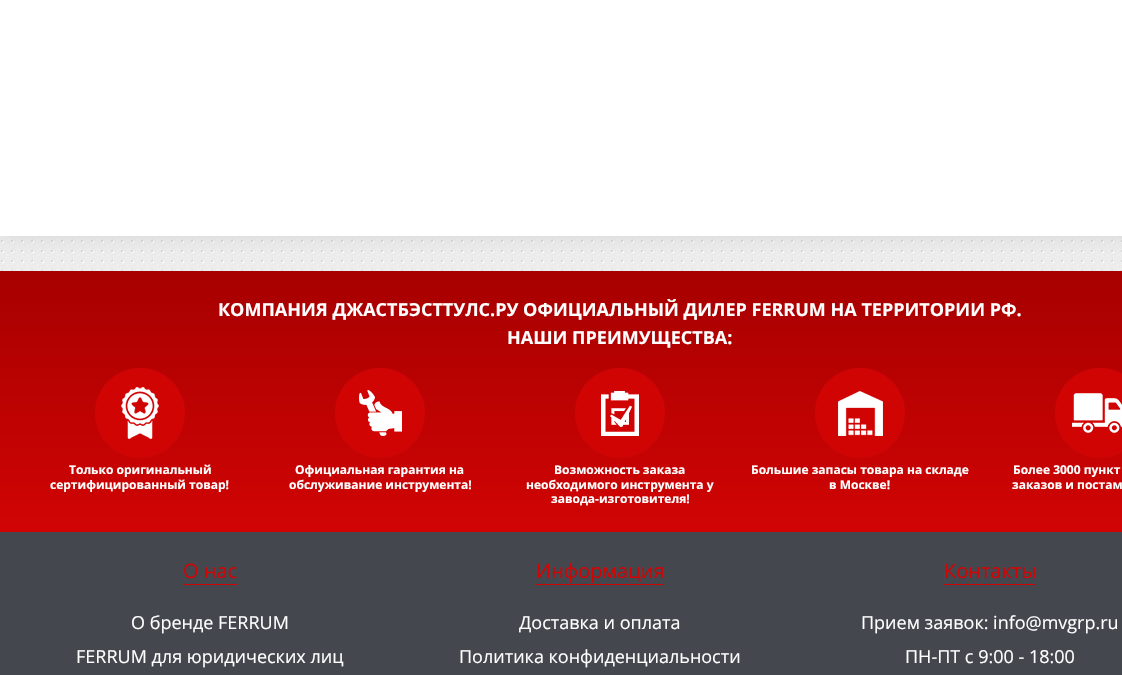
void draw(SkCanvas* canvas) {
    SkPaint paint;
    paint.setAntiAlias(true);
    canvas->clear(0xFFFFFFFF);
    canvas->drawImageRect(SkImages::DeferredFromEncodedData(SkData::MakeFromFileName("img1.png")), SkRect::MakeXYWH(0, 236, 1122, 35), SkSamplingOptions());
    paint.setColor(0x1A000000);
    paint.setMaskFilter(SkMaskFilter::MakeBlur(kNormal_SkBlurStyle, 10));
    canvas->drawRect(SkRect::MakeXYWH(0, -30, 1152, 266), paint);
    paint.setMaskFilter(nullptr);
    paint.setColor(0xFFFFFFFF);
    canvas->drawRect(SkRect::MakeXYWH(0, 0, 1122, 236), paint);
    {
        const SkColor colors[] = {0xFFD10404, 0xFFA70000};
        const float stops[] = {0, 1};
        const SkPoint ends[] = {{620, 532}, {620, 271}};
        paint.setShader(SkGradientShader::MakeLinear(ends, colors, stops, 2, SkTileMode::kClamp));
        paint.setAlpha(255);
    }
    canvas->drawRect(SkRect::MakeXYWH(0, 271, 1122, 261), paint);
    SkFont font1(fontMgr->matchFamilyStyle("Open Sans", SkFontStyle::Bold()), 18);
    font1.setSubpixel(true);
    paint.setShader(nullptr);
    paint.setColor(0xFFFFFFFF);
    canvas->drawString("КОМПАНИЯ ДЖАСТБЭСТТУЛС.РУ ОФИЦИАЛЬНЫЙ ДИЛЕР FERRUM НА ТЕРРИТОРИИ РФ.", 218, 316, font1, paint);
    canvas->drawString("НАШИ ПРЕИМУЩЕСТВА:", 507, 344, font1, paint);
    paint.setColor(0xFFD10404);
    canvas->drawCircle(140, 413, 45, paint);
    canvas->drawImageRect(SkImages::DeferredFromEncodedData(SkData::MakeFromFileName("img2.png")), SkRect::MakeXYWH(121, 387, 38, 52), SkSamplingOptions());
    SkFont font2(fontMgr->matchFamilyStyle("Open Sans", SkFontStyle::Bold()), 12);
    font2.setSubpixel(true);
    paint.setColor(0xFFFFFFFF);
    canvas->drawString("Только оригинальный", 69, 474, font2, paint);
    canvas->drawString("сертифицированный товар!", 50, 489, font2, paint);
    paint.setColor(0xFFD10404);
    canvas->drawCircle(380, 413, 45, paint);
    canvas->drawImageRect(SkImages::DeferredFromEncodedData(SkData::MakeFromFileName("img3.png")), SkRect::MakeXYWH(359, 390, 43, 46), SkSamplingOptions());
    paint.setColor(0xFFFFFFFF);
    canvas->drawString("Официальная гарантия на", 295, 474, font2, paint);
    canvas->drawString("обслуживание инструмента!", 289, 489, font2, paint);
    paint.setColor(0xFFD10404);
    canvas->drawCircle(620, 413, 45, paint);
    canvas->drawImageRect(SkImages::DeferredFromEncodedData(SkData::MakeFromFileName("img4.png")), SkRect::MakeXYWH(601, 391, 38, 45), SkSamplingOptions());
    paint.setColor(0xFFFFFFFF);
    canvas->drawString("Возможность заказа", 554, 474, font2, paint);
    canvas->drawString("необходимого инструмента у", 526, 489, font2, paint);
    canvas->drawString("завода-изготовителя!", 551, 503, font2, paint);
    paint.setColor(0xFFD10404);
    canvas->drawCircle(860, 413, 45, paint);
    canvas->drawImageRect(SkImages::DeferredFromEncodedData(SkData::MakeFromFileName("img5.png")), SkRect::MakeXYWH(838, 391, 45, 45), SkSamplingOptions());
    paint.setColor(0xFFFFFFFF);
    canvas->drawString("Большие запасы товара на складе", 751, 474, font2, paint);
    canvas->drawString("в Москве!", 829, 489, font2, paint);
    paint.setColor(0xFFD10404);
    canvas->drawCircle(1100, 413, 45, paint);
    canvas->drawImageRect(SkImages::DeferredFromEncodedData(SkData::MakeFromFileName("img6.png")), SkRect::MakeXYWH(1072, 393, 50, 40), SkSamplingOptions());
    paint.setColor(0xFFFFFFFF);
    canvas->drawString("Более 3000 пункт", 1013, 474, font2, paint);
    canvas->drawString("заказов и постам", 1012, 489, font2, paint);
    paint.setColor(0xFF44474E);
    canvas->drawRect(SkRect::MakeXYWH(0, 532, 1122, 143), paint);
    paint.setColor(0xFFD10404);
    canvas->drawRect(SkRect::MakeXYWH(183, 584, 54, 1), paint);
    SkFont font3(fontMgr->matchFamilyStyle("Open Sans", SkFontStyle::Normal()), 20);
    font3.setSubpixel(true);
    canvas->drawString("О нас", 183, 578, font3, paint);
    SkFont font4(fontMgr->matchFamilyStyle("Open Sans", SkFontStyle::Normal()), 18);
    font4.setSubpixel(true);
    paint.setColor(0xFFFFFFFF);
    canvas->drawString("О бренде FERRUM", 131, 629, font4, paint);
    canvas->drawString("FERRUM для юридических лиц", 76, 663, font4, paint);
    paint.setColor(0xFFD10404);
    canvas->drawRect(SkRect::MakeXYWH(536, 584, 128, 1), paint);
    canvas->drawString("Информация", 536, 578, font3, paint);
    paint.setColor(0xFFFFFFFF);
    canvas->drawString("Доставка и оплата", 519, 629, font4, paint);
    canvas->drawString("Политика конфиденциальности", 459, 663, font4, paint);
    paint.setColor(0xFFD10404);
    canvas->drawRect(SkRect::MakeXYWH(944, 584, 92, 1), paint);
    canvas->drawString("Контакты", 944, 578, font3, paint);
    paint.setColor(0xFFFFFFFF);
    canvas->drawString("Прием заявок: info@mvgrp.ru", 861, 629, font4, paint);
    canvas->drawString("ПН-ПТ с 9:00 - 18:00", 905, 663, font4, paint);
}
